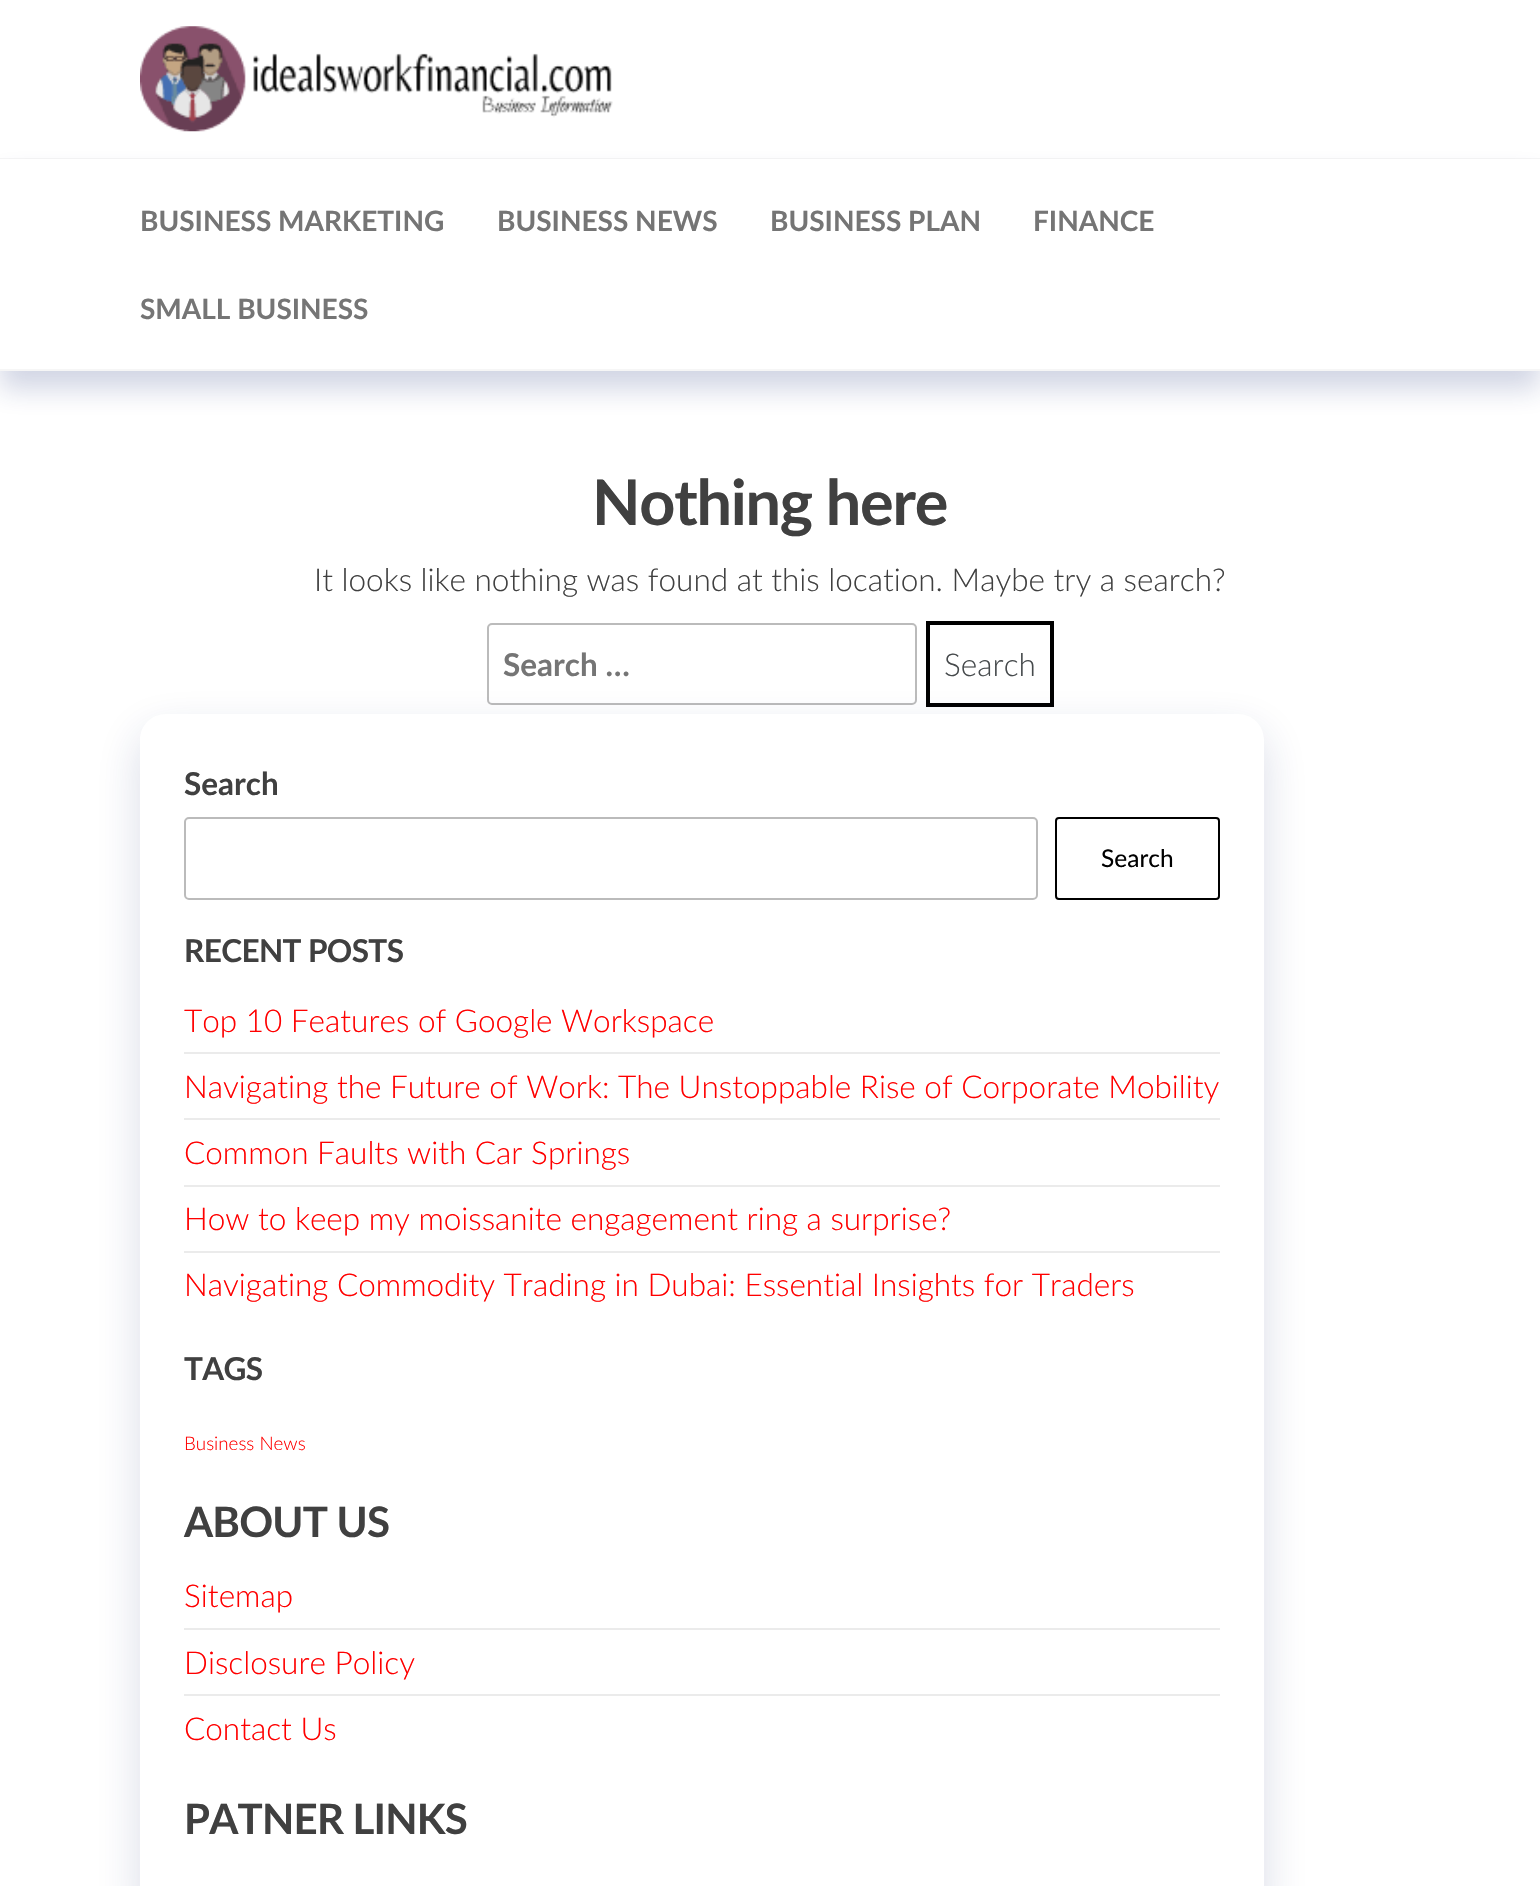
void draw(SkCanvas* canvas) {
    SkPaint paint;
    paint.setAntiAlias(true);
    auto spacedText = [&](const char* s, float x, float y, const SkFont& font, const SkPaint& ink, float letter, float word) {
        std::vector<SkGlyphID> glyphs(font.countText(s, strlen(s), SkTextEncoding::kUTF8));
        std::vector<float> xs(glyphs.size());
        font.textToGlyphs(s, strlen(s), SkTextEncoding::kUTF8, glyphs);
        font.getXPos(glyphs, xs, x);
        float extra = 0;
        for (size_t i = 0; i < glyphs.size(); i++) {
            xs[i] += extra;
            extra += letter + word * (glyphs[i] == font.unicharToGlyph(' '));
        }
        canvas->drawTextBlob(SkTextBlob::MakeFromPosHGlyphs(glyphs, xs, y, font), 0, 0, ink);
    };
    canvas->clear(0xFFFFFFFF);
    paint.setColor(0xFFF6F6F6);
    canvas->drawRect(SkRect::MakeXYWH(0, 158, 1540, 1), paint);
    canvas->drawImageRect(SkImages::DeferredFromEncodedData(SkData::MakeFromFileName("img1.png")), SkRect::MakeXYWH(140, 26, 473, 106), SkSamplingOptions());
    paint.setColor(0x33192D78);
    paint.setMaskFilter(SkMaskFilter::MakeBlur(kNormal_SkBlurStyle, 13));
    canvas->drawRect(SkRect::MakeXYWH(0, 177, 1540, 212), paint);
    paint.setMaskFilter(nullptr);
    paint.setColor(0xFFFFFFFF);
    canvas->drawRect(SkRect::MakeXYWH(0, 159, 1540, 210), paint);
    paint.setColor(0xFFF6F6F6);
    canvas->drawRect(SkRect::MakeXYWH(0, 369, 1540, 2), paint);
    SkFont font1(fontMgr->matchFamilyStyle("Lato", SkFontStyle::Bold()), 28);
    font1.setSubpixel(true);
    paint.setColor(0xFF757575);
    canvas->drawString("BUSINESS MARKETING", 140, 231, font1, paint);
    canvas->drawString("BUSINESS NEWS", 497, 231, font1, paint);
    canvas->drawString("BUSINESS PLAN", 770, 231, font1, paint);
    canvas->drawString("FINANCE", 1033, 231, font1, paint);
    canvas->drawString("SMALL BUSINESS", 140, 319, font1, paint);
    SkFont font2(fontMgr->matchFamilyStyle("Lato", SkFontStyle::Bold()), 63);
    font2.setSubpixel(true);
    paint.setColor(0xFF404040);
    spacedText("Nothing here", 592, 525, font2, paint, -1.25f, 0);
    SkFont font3(fontMgr->matchFamilyStyle("Lato", SkFontStyle(300, SkFontStyle::kNormal_Width, SkFontStyle::kUpright_Slant)), 31.5f);
    font3.setSubpixel(true);
    canvas->drawString("It looks like nothing was found at this location. Maybe try a search?", 314, 591, font3, paint);
    paint.setStyle(SkPaint::kStroke_Style);
    paint.setStrokeWidth(2);
    paint.setColor(0xFFBBBBBB);
    canvas->drawRoundRect(SkRect::MakeXYWH(488, 624, 428, 80), 4, 4, paint);
    SkFont font4(fontMgr->matchFamilyStyle("Lato", SkFontStyle::Bold()), 31.5f);
    font4.setSubpixel(true);
    paint.setStyle(SkPaint::kFill_Style);
    paint.setColor(0xFF757575);
    canvas->drawString("Search …", 503, 676, font4, paint);
    paint.setStyle(SkPaint::kStroke_Style);
    paint.setStrokeWidth(4);
    paint.setColor(0xFF000000);
    canvas->drawRect(SkRect::MakeXYWH(928, 623, 124, 82), paint);
    paint.setStyle(SkPaint::kFill_Style);
    paint.setColor(0xFF464A4C);
    canvas->drawString("Search", 944, 676, font3, paint);
    canvas->save();
    canvas->clipPath(SkPathBuilder(SkPathFillType::kEvenOdd).moveTo(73, 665).lineTo(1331, 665).lineTo(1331, 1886).lineTo(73, 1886).close().moveTo(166, 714).lineTo(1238, 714).cubicTo(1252.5f, 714, 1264, 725.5f, 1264, 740).lineTo(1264, 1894).cubicTo(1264, 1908.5f, 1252.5f, 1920, 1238, 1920).lineTo(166, 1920).cubicTo(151.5f, 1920, 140, 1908.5f, 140, 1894).lineTo(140, 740).cubicTo(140, 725.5f, 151.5f, 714, 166, 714).close().detach(), true);
    paint.setColor(0x2B1C2D71);
    paint.setMaskFilter(SkMaskFilter::MakeBlur(kNormal_SkBlurStyle, 22));
    canvas->drawRoundRect(SkRect::MakeXYWH(140, 732, 1124, 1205), 26, 26, paint);
    paint.setMaskFilter(nullptr);
    canvas->restore();
    paint.setColor(0xFF404040);
    canvas->drawString("Search", 184, 795, font4, paint);
    paint.setStyle(SkPaint::kStroke_Style);
    paint.setStrokeWidth(2);
    paint.setColor(0xFFBBBBBB);
    canvas->drawRoundRect(SkRect::MakeXYWH(185, 818, 852, 81), 4, 4, paint);
    paint.setColor(0xFF000000);
    canvas->drawRoundRect(SkRect::MakeXYWH(1056, 818, 163, 81), 3, 3, paint);
    SkFont font5(fontMgr->matchFamilyStyle("Lato", SkFontStyle::Normal()), 24.5f);
    font5.setSubpixel(true);
    paint.setStyle(SkPaint::kFill_Style);
    canvas->drawString("Search", 1101, 867, font5, paint);
    paint.setColor(0xFF404040);
    spacedText("RECENT POSTS", 184, 962, font4, paint, -0.6f, 0);
    paint.setColor(0xFFEBEBEB);
    canvas->drawRect(SkRect::MakeXYWH(184, 1052, 1036, 2), paint);
    paint.setColor(0xFFFF0000);
    canvas->drawString("Top 10 Features of Google Workspace", 184, 1032, font3, paint);
    paint.setColor(0xFFEBEBEB);
    canvas->drawRect(SkRect::MakeXYWH(184, 1118, 1036, 2), paint);
    paint.setColor(0xFFFF0000);
    canvas->drawString("Navigating the Future of Work: The Unstoppable Rise of Corporate Mobility", 184, 1098, font3, paint);
    paint.setColor(0xFFEBEBEB);
    canvas->drawRect(SkRect::MakeXYWH(184, 1185, 1036, 2), paint);
    paint.setColor(0xFFFF0000);
    canvas->drawString("Common Faults with Car Springs", 184, 1164, font3, paint);
    paint.setColor(0xFFEBEBEB);
    canvas->drawRect(SkRect::MakeXYWH(184, 1251, 1036, 2), paint);
    paint.setColor(0xFFFF0000);
    canvas->drawString("How to keep my moissanite engagement ring a surprise?", 184, 1230, font3, paint);
    canvas->drawString("Navigating Commodity Trading in Dubai: Essential Insights for Traders", 184, 1296, font3, paint);
    paint.setColor(0xFF404040);
    spacedText("TAGS", 184, 1380, font4, paint, -0.6f, 0);
    SkFont font6(fontMgr->matchFamilyStyle("Lato", SkFontStyle(300, SkFontStyle::kNormal_Width, SkFontStyle::kUpright_Slant)), 18.75f);
    font6.setSubpixel(true);
    paint.setColor(0xFFFF0000);
    canvas->drawString("Business News", 184, 1450, font6, paint);
    SkFont font7(fontMgr->matchFamilyStyle("Lato", SkFontStyle::Bold()), 42);
    font7.setSubpixel(true);
    paint.setColor(0xFF404040);
    spacedText("ABOUT US", 184, 1537, font7, paint, -0.8f, 0);
    paint.setColor(0xFFEBEBEB);
    canvas->drawRect(SkRect::MakeXYWH(184, 1628, 1036, 2), paint);
    paint.setColor(0xFFFF0000);
    canvas->drawString("Sitemap", 184, 1607, font3, paint);
    paint.setColor(0xFFEBEBEB);
    canvas->drawRect(SkRect::MakeXYWH(184, 1694, 1036, 2), paint);
    paint.setColor(0xFFFF0000);
    canvas->drawString("Disclosure Policy", 184, 1674, font3, paint);
    canvas->drawString("Contact Us", 184, 1740, font3, paint);
    paint.setColor(0xFF404040);
    spacedText("PATNER LINKS", 184, 1834, font7, paint, -0.8f, 0);
}
